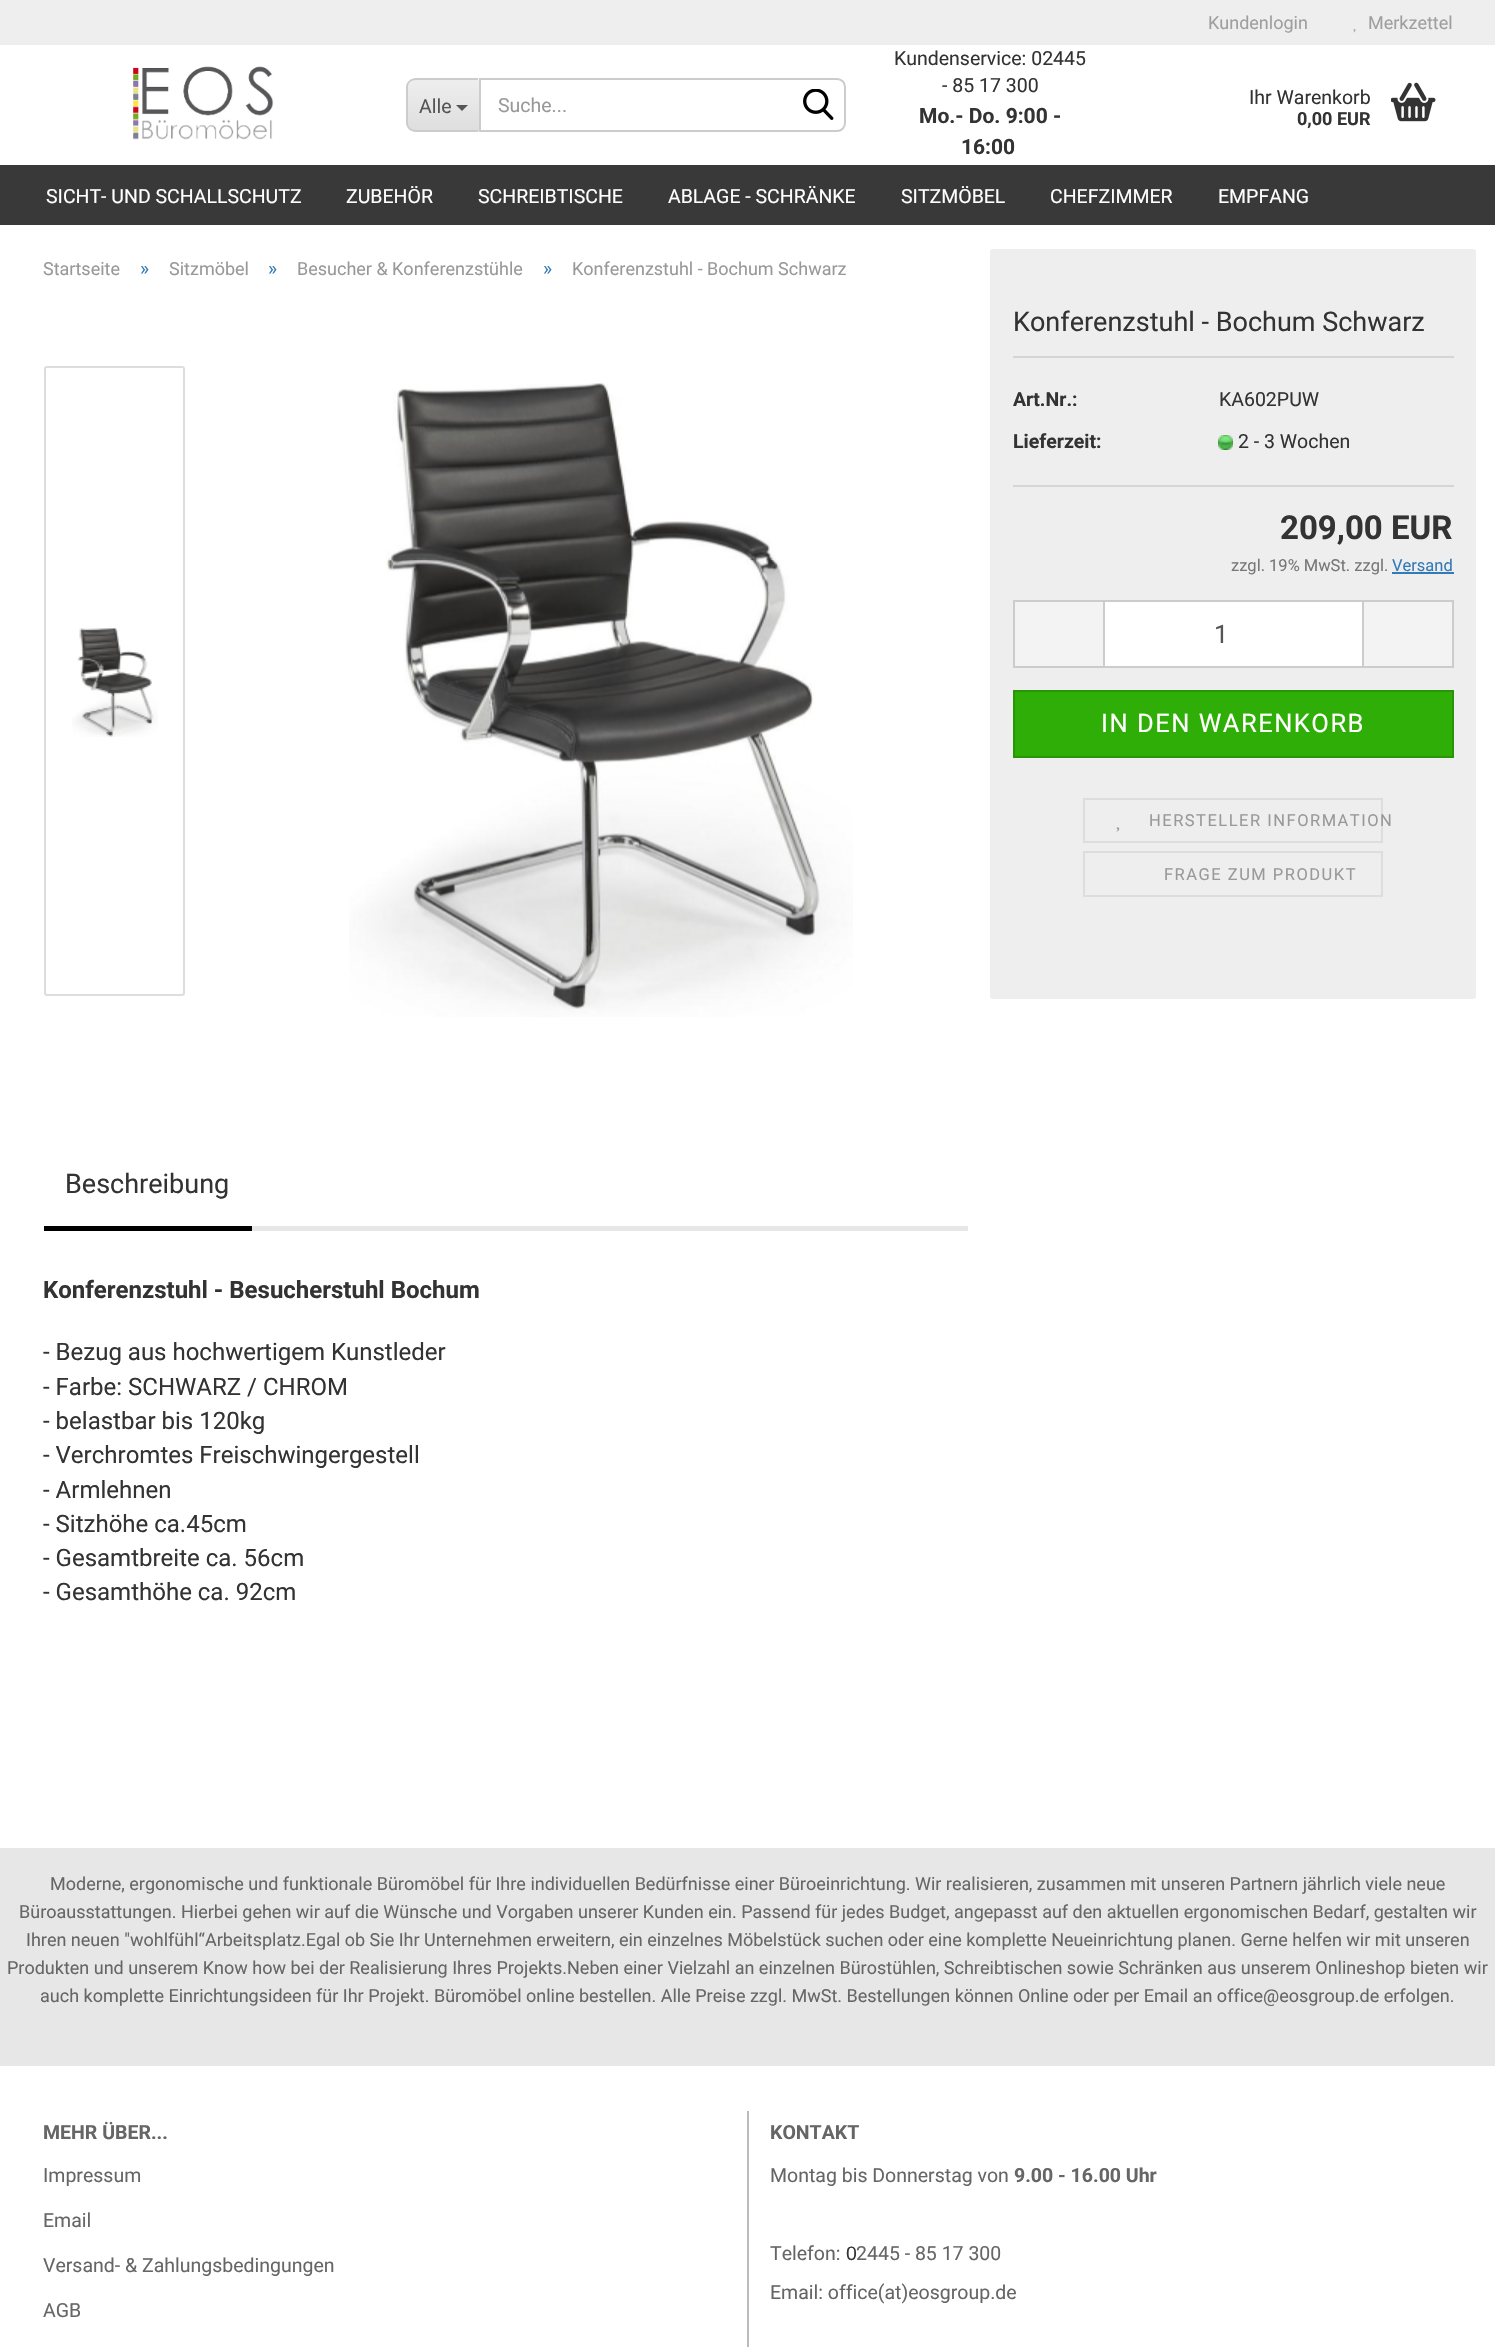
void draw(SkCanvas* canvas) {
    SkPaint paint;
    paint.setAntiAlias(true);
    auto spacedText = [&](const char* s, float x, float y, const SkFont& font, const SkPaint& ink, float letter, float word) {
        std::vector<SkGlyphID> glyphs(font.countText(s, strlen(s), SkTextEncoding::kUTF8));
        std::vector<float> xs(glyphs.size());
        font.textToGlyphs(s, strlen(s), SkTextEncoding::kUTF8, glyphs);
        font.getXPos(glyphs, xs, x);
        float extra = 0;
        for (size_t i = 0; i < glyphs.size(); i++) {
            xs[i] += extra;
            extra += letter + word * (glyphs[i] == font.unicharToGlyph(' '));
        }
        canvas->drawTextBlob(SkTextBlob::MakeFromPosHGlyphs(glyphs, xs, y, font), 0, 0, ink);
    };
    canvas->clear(0xFFFFFFFF);
    paint.setColor(0xFFEEEEEE);
    canvas->drawRect(SkRect::MakeXYWH(0, 0, 1495, 45), paint);
    SkFont font1(fontMgr->matchFamilyStyle("Roboto", SkFontStyle::Normal()), 18);
    font1.setSubpixel(true);
    paint.setColor(0xFF9F9F9F);
    canvas->drawString("Kundenlogin", 1208, 29, font1, paint);
    canvas->drawString("Merkzettel", 1368, 29, font1, paint);
    canvas->drawImageRect(SkImages::DeferredFromEncodedData(SkData::MakeFromFileName("img1.png")), SkRect::MakeXYWH(1353, 29, 3, 4), SkSamplingOptions());
    canvas->drawImageRect(SkImages::DeferredFromEncodedData(SkData::MakeFromFileName("img2.png")), SkRect::MakeXYWH(133, 66, 141, 74), SkSamplingOptions());
    paint.setColor(0xFFF3F3F3);
    canvas->drawPath(SkPathBuilder().moveTo(416, 78).lineTo(479, 78).lineTo(479, 132).lineTo(416, 132).cubicTo(411, 132, 407, 128, 407, 123).lineTo(407, 87).cubicTo(407, 82, 411, 78, 416, 78).close().detach(), paint);
    canvas->save();
    canvas->clipPath(SkPathBuilder().moveTo(416, 78).lineTo(479, 78).lineTo(479, 132).lineTo(416, 132).cubicTo(411, 132, 407, 128, 407, 123).lineTo(407, 87).cubicTo(407, 82, 411, 78, 416, 78).close().detach(), true);
    {
        const SkColor colors[] = {0xFFEEEEEE, 0xFFDEDEDE};
        const float stops[] = {0, 1};
        const SkPoint ends[] = {{443, 80}, {443, 131}};
        paint.setShader(SkGradientShader::MakeLinear(ends, colors, stops, 2, SkTileMode::kClamp));
        paint.setAlpha(255);
    }
    canvas->drawRect(SkRect::MakeXYWH(407, 80, 72, 51), paint);
    canvas->restore();
    paint.setShader(nullptr);
    paint.setColor(0xFFCCCCCC);
    canvas->drawPath(SkPathBuilder(SkPathFillType::kEvenOdd).moveTo(416, 78).lineTo(478, 78).lineTo(478, 132).lineTo(416, 132).cubicTo(411, 132, 406, 128, 406, 123).lineTo(406, 87).cubicTo(406, 82, 411, 78, 416, 78).close().moveTo(416, 80).lineTo(478, 80).lineTo(478, 130).lineTo(416, 130).cubicTo(411, 130, 408, 127, 408, 123).lineTo(408, 87).cubicTo(408, 83, 411, 80, 416, 80).close().detach(), paint);
    SkFont font2(fontMgr->matchFamilyStyle("Roboto", SkFontStyle::Normal()), 19.5f);
    font2.setSubpixel(true);
    paint.setColor(0xFF555555);
    canvas->drawString("Alle", 419, 113, font2, paint);
    canvas->drawPath(SkPathBuilder().moveTo(456, 105).lineTo(468, 105).lineTo(462, 111).close().detach(), paint);
    paint.setStyle(SkPaint::kStroke_Style);
    paint.setStrokeWidth(2);
    paint.setColor(0xFFCCCCCC);
    canvas->drawPath(SkPathBuilder().moveTo(480, 79).lineTo(837, 79).cubicTo(841.5f, 79, 845, 82.5f, 845, 87).lineTo(845, 123).cubicTo(845, 127.5f, 841.5f, 131, 837, 131).lineTo(480, 131).close().detach(), paint);
    paint.setStyle(SkPaint::kFill_Style);
    paint.setColor(0xFF999999);
    canvas->drawString("Suche...", 498, 112, font2, paint);
    canvas->drawImageRect(SkImages::DeferredFromEncodedData(SkData::MakeFromFileName("img3.png")), SkRect::MakeXYWH(803, 89, 31, 31), SkSamplingOptions());
    paint.setColor(0xFF333333);
    canvas->drawString("Kundenservice: 02445", 894, 65, font2, paint);
    canvas->drawString("- 85 17 300", 942, 92, font2, paint);
    SkFont font3(fontMgr->matchFamilyStyle("Roboto", SkFontStyle::Bold()), 21);
    font3.setSubpixel(true);
    canvas->drawString("Mo.- Do. 9:00 -", 919, 123, font3, paint);
    canvas->drawString("16:00", 961, 154, font3, paint);
    canvas->drawString("Ihr Warenkorb", 1249, 104, font2, paint);
    SkFont font4(fontMgr->matchFamilyStyle("Roboto", SkFontStyle::Bold()), 18);
    font4.setSubpixel(true);
    canvas->drawString("0,00 EUR", 1297, 125, font4, paint);
    canvas->drawImageRect(SkImages::DeferredFromEncodedData(SkData::MakeFromFileName("img4.png")), SkRect::MakeXYWH(1391, 82, 45, 40), SkSamplingOptions());
    paint.setColor(0xFF393939);
    canvas->drawRect(SkRect::MakeXYWH(0, 165, 1495, 60), paint);
    paint.setColor(0xFFFFFFFF);
    canvas->drawString("SICHT- UND SCHALLSCHUTZ", 46, 203, font2, paint);
    canvas->drawString("ZUBEHÖR", 346, 203, font2, paint);
    canvas->drawString("SCHREIBTISCHE", 478, 203, font2, paint);
    canvas->drawString("ABLAGE - SCHRÄNKE", 668, 203, font2, paint);
    canvas->drawString("SITZMÖBEL", 901, 203, font2, paint);
    canvas->drawString("CHEFZIMMER", 1050, 203, font2, paint);
    canvas->drawString("EMPFANG", 1218, 203, font2, paint);
    paint.setColor(0xFF999999);
    canvas->drawString("Startseite", 43, 275, font1, paint);
    paint.setColor(0xFF337AB7);
    canvas->drawString("»", 140, 275, font2, paint);
    paint.setColor(0xFF999999);
    canvas->drawString("Sitzmöbel", 169, 275, font1, paint);
    paint.setColor(0xFF337AB7);
    canvas->drawString("»", 268, 275, font2, paint);
    paint.setColor(0xFF999999);
    canvas->drawString("Besucher & Konferenzstühle", 297, 275, font1, paint);
    paint.setColor(0xFF337AB7);
    canvas->drawString("»", 543, 275, font2, paint);
    paint.setColor(0xFF999999);
    canvas->drawString("Konferenzstuhl - Bochum Schwarz", 572, 275, font1, paint);
    paint.setStyle(SkPaint::kStroke_Style);
    paint.setColor(0xFFDDDDDD);
    canvas->drawRoundRect(SkRect::MakeXYWH(45, 367, 139, 628), 2, 2, paint);
    canvas->drawImageRect(SkImages::DeferredFromEncodedData(SkData::MakeFromFileName("img5.png")), SkRect::MakeXYWH(72, 628, 86, 109), SkSamplingOptions());
    canvas->drawImageRect(SkImages::DeferredFromEncodedData(SkData::MakeFromFileName("img6.png")), SkRect::MakeXYWH(349, 383, 504, 634), SkSamplingOptions());
    paint.setStyle(SkPaint::kFill_Style);
    paint.setColor(0xFFEEEEEE);
    canvas->drawRoundRect(SkRect::MakeXYWH(990, 249, 486, 750), 3, 3, paint);
    paint.setColor(0xFFD5D5D5);
    canvas->drawRect(SkRect::MakeXYWH(1013, 356, 441, 2), paint);
    SkFont font5(fontMgr->matchFamilyStyle("Roboto", SkFontStyle::Normal()), 27);
    font5.setSubpixel(true);
    paint.setColor(0xFF333333);
    canvas->drawString("Konferenzstuhl - Bochum Schwarz", 1013, 331, font5, paint);
    paint.setColor(0xFFD5D5D5);
    canvas->drawRect(SkRect::MakeXYWH(1013, 485, 441, 2), paint);
    SkFont font6(fontMgr->matchFamilyStyle("Roboto", SkFontStyle::Bold()), 19.5f);
    font6.setSubpixel(true);
    paint.setColor(0xFF333333);
    canvas->drawString("Art.Nr.:", 1013, 406, font6, paint);
    canvas->drawString("KA602PUW", 1219, 406, font2, paint);
    canvas->drawString("Lieferzeit:", 1013, 448, font6, paint);
    canvas->drawImageRect(SkImages::DeferredFromEncodedData(SkData::MakeFromFileName("img7.png")), SkRect::MakeXYWH(1218, 435, 15, 15), SkSamplingOptions());
    canvas->drawString("2 - 3 Wochen", 1238, 448, font2, paint);
    SkFont font7(fontMgr->matchFamilyStyle("Roboto", SkFontStyle::Bold()), 33);
    font7.setSubpixel(true);
    canvas->drawString("209,00 EUR", 1280, 539, font7, paint);
    SkFont font8(fontMgr->matchFamilyStyle("Roboto", SkFontStyle::Normal()), 16.5f);
    font8.setSubpixel(true);
    paint.setColor(0xFF777777);
    canvas->drawString("zzgl. 19% MwSt. zzgl.", 1231, 571, font8, paint);
    paint.setColor(0xFF337AB7);
    canvas->drawString("Versand", 1392, 571, font8, paint);
    canvas->drawRect(SkRect::MakeXYWH(1392, 572, 62, 2), paint);
    paint.setColor(0xFFF3F3F3);
    canvas->drawRect(SkRect::MakeXYWH(1015, 602, 88, 64), paint);
    paint.setColor(0xFFCCCCCC);
    canvas->drawRect(SkRect::MakeXYWH(1013, 600, 90, 2), paint);
    canvas->drawRect(SkRect::MakeXYWH(1013, 666, 90, 2), paint);
    canvas->drawRect(SkRect::MakeXYWH(1013, 600, 2, 68), paint);
    paint.setColor(0xFFFFFFFF);
    canvas->drawRect(SkRect::MakeXYWH(1104, 601, 259, 66), paint);
    paint.setStyle(SkPaint::kStroke_Style);
    paint.setColor(0xFFCCCCCC);
    canvas->drawRect(SkRect::MakeXYWH(1104, 601, 259, 66), paint);
    SkFont font9(fontMgr->matchFamilyStyle("Roboto", SkFontStyle::Normal()), 25.5f);
    font9.setSubpixel(true);
    paint.setStyle(SkPaint::kFill_Style);
    paint.setColor(0xFF555555);
    canvas->drawString("1", 1214, 643, font9, paint);
    paint.setColor(0xFFF3F3F3);
    canvas->drawRect(SkRect::MakeXYWH(1364, 602, 88, 64), paint);
    paint.setColor(0xFFCCCCCC);
    canvas->drawRect(SkRect::MakeXYWH(1364, 600, 90, 2), paint);
    canvas->drawRect(SkRect::MakeXYWH(1452, 600, 2, 68), paint);
    canvas->drawRect(SkRect::MakeXYWH(1364, 666, 90, 2), paint);
    paint.setColor(0xFF2EAE06);
    canvas->drawRect(SkRect::MakeXYWH(1014, 691, 439, 66), paint);
    paint.setStyle(SkPaint::kStroke_Style);
    paint.setColor(0xFF279505);
    canvas->drawRect(SkRect::MakeXYWH(1014, 691, 439, 66), paint);
    paint.setStyle(SkPaint::kFill_Style);
    paint.setColor(0xFFFFFFFF);
    spacedText("IN DEN WARENKORB", 1101, 732, font9, paint, 1.5f, 0);
    paint.setStyle(SkPaint::kStroke_Style);
    paint.setColor(0xFFDDDDDD);
    canvas->drawRect(SkRect::MakeXYWH(1084, 799, 298, 43), paint);
    paint.setStyle(SkPaint::kFill_Style);
    paint.setColor(0xFF999999);
    spacedText("HERSTELLER INFORMATION", 1149, 826, font8, paint, 1.5f, 0);
    canvas->drawImageRect(SkImages::DeferredFromEncodedData(SkData::MakeFromFileName("img8.png")), SkRect::MakeXYWH(1116, 827, 4, 5), SkSamplingOptions());
    paint.setStyle(SkPaint::kStroke_Style);
    paint.setColor(0xFFDDDDDD);
    canvas->drawRect(SkRect::MakeXYWH(1084, 852, 298, 44), paint);
    paint.setStyle(SkPaint::kFill_Style);
    paint.setColor(0xFF999999);
    spacedText("FRAGE ZUM PRODUKT", 1164, 880, font8, paint, 1.5f, 0);
    paint.setColor(0xFFE7E7E7);
    canvas->drawRect(SkRect::MakeXYWH(252, 1226, 716, 5), paint);
    paint.setColor(0xFF000000);
    canvas->drawRect(SkRect::MakeXYWH(44, 1226, 208, 5), paint);
    paint.setColor(0xFF333333);
    canvas->drawString("Beschreibung", 65, 1193, font5, paint);
    SkFont font10(fontMgr->matchFamilyStyle("Roboto", SkFontStyle::Bold()), 24);
    font10.setSubpixel(true);
    canvas->drawString("Konferenzstuhl - Besucherstuhl Bochum", 43, 1298, font10, paint);
    SkFont font11(fontMgr->matchFamilyStyle("Roboto", SkFontStyle::Normal()), 24);
    font11.setSubpixel(true);
    canvas->drawString("- Bezug aus hochwertigem Kunstleder", 43, 1360, font11, paint);
    canvas->drawString("- Farbe: SCHWARZ / CHROM", 43, 1395, font11, paint);
    canvas->drawString("- belastbar bis 120kg", 43, 1429, font11, paint);
    canvas->drawString("- Verchromtes Freischwingergestell", 43, 1463, font11, paint);
    canvas->drawString("- Armlehnen", 43, 1498, font11, paint);
    canvas->drawString("- Sitzhöhe ca.45cm", 43, 1532, font11, paint);
    canvas->drawString("- Gesamtbreite ca. 56cm", 43, 1566, font11, paint);
    canvas->drawString("- Gesamthöhe ca. 92cm", 43, 1600, font11, paint);
    paint.setColor(0xFFE7E7E7);
    canvas->drawRect(SkRect::MakeXYWH(0, 1848, 1495, 218), paint);
    paint.setColor(0xFF666666);
    canvas->drawString("Moderne, ergonomische und funktionale Büromöbel für Ihre individuellen Bedürfnisse einer Büroeinrichtung. Wir realisieren, zusammen mit unseren Partnern jährlich viele neue", 50, 1890, font1, paint);
    canvas->drawString("Büroausstattungen. Hierbei gehen wir auf die Wünsche und Vorgaben unserer Kunden ein. Passend für jedes Budget, angepasst auf den aktuellen ergonomischen Bedarf, gestalten wir", 19, 1918, font1, paint);
    canvas->drawString("Ihren neuen \"wohlfühl“Arbeitsplatz.Egal ob Sie Ihr Unternehmen erweitern, ein einzelnes Möbelstück suchen oder eine komplette Neueinrichtung planen. Gerne helfen wir mit unseren", 26, 1946, font1, paint);
    canvas->drawString("Produkten und unserem Know how bei der Realisierung Ihres Projekts.Neben einer Vielzahl an einzelnen Bürostühlen, Schreibtischen sowie Schränken aus unserem Onlineshop bieten wir", 7, 1974, font1, paint);
    canvas->drawString("auch komplette Einrichtungsideen für Ihr Projekt. Büromöbel online bestellen. Alle Preise zzgl. MwSt. Bestellungen können Online oder per Email an office@eosgroup.de erfolgen.", 40, 2002, font1, paint);
    paint.setColor(0xFFBBBBBB);
    canvas->drawRect(SkRect::MakeXYWH(747, 2111, 2, 236), paint);
    paint.setColor(0xFF666666);
    canvas->drawString("MEHR ÜBER...", 43, 2139, font6, paint);
    canvas->drawString("Impressum", 43, 2182, font2, paint);
    canvas->drawString("Email", 43, 2227, font2, paint);
    canvas->drawString("Versand- & Zahlungsbedingungen", 43, 2272, font2, paint);
    canvas->drawString("AGB", 43, 2317, font2, paint);
    canvas->drawString("KONTAKT", 770, 2139, font6, paint);
    canvas->drawString("Montag bis Donnerstag von", 770, 2182, font2, paint);
    canvas->drawString("9.00 - 16.00 Uhr", 1014, 2182, font6, paint);
    canvas->drawString("Telefon:", 770, 2260, font2, paint);
    SkFont font12(fontMgr->matchFamilyStyle("Liberation Sans", SkFontStyle::Normal()), 19.5f);
    font12.setSubpixel(true);
    paint.setColor(0xFF333333);
    canvas->drawString("0", 846, 2260, font12, paint);
    paint.setColor(0xFF666666);
    canvas->drawString("2445 - 85 17 300", 856, 2260, font2, paint);
    canvas->drawString("Email: office(at)eosgroup.de", 770, 2299, font2, paint);
}
